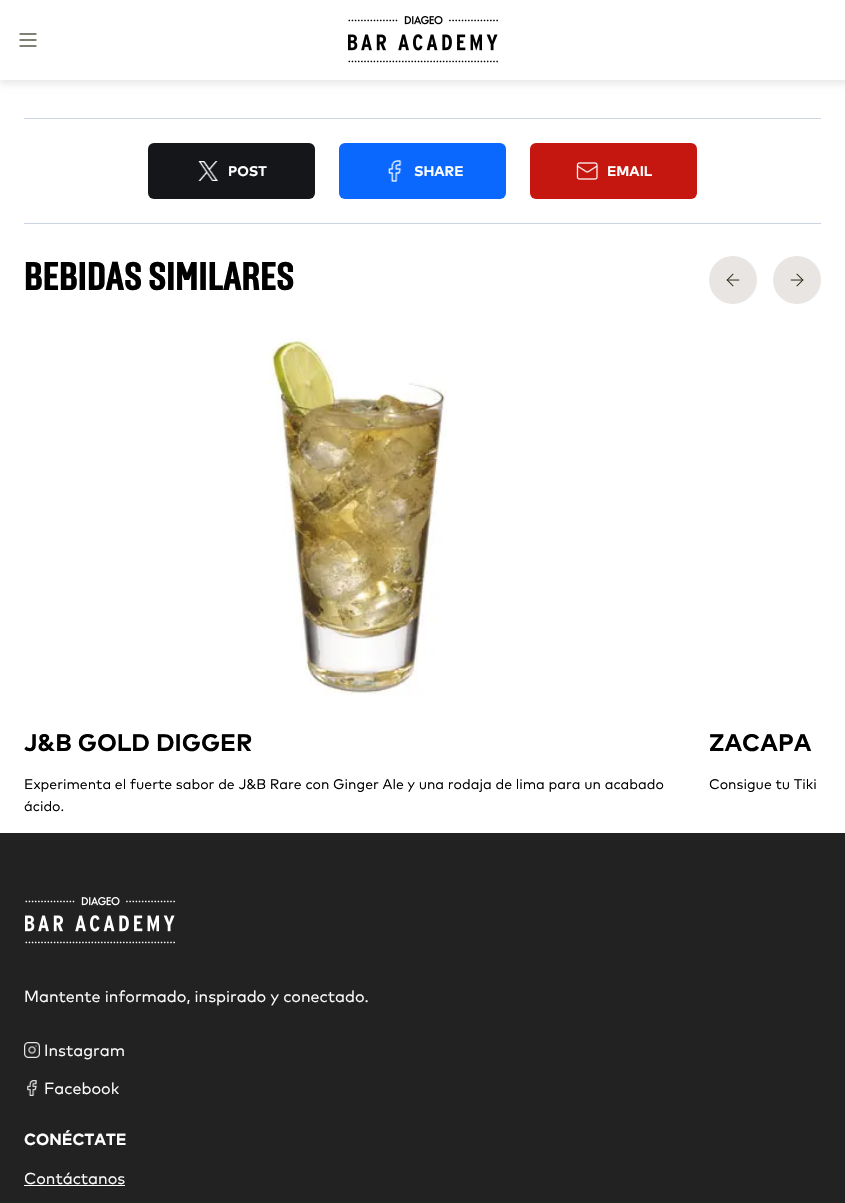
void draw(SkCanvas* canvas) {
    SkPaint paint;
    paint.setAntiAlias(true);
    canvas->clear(0xFFFFFFFF);
    paint.setColor(0x1A000000);
    paint.setMaskFilter(SkMaskFilter::MakeBlur(kNormal_SkBlurStyle, 4));
    canvas->drawRect(SkRect::MakeXYWH(-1, -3, 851, 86), paint);
    paint.setMaskFilter(nullptr);
    paint.setColor(0xFFFFFFFF);
    canvas->drawRect(SkRect::MakeXYWH(0, 0, 845, 80), paint);
    canvas->drawImageRect(SkImages::DeferredFromEncodedData(SkData::MakeFromFileName("img1.png")), SkRect::MakeXYWH(19, 33, 18, 14), SkSamplingOptions());
    canvas->drawImageRect(SkImages::DeferredFromEncodedData(SkData::MakeFromFileName("img2.png")), SkRect::MakeXYWH(348, 16, 150, 47), SkSamplingOptions());
    paint.setColor(0xFFCBD5E1);
    canvas->drawRect(SkRect::MakeXYWH(24, 118, 797, 1), paint);
    canvas->drawRect(SkRect::MakeXYWH(24, 223, 797, 1), paint);
    paint.setColor(0xFF141619);
    canvas->drawRoundRect(SkRect::MakeXYWH(148, 143, 167, 56), 6, 6, paint);
    canvas->drawImageRect(SkImages::DeferredFromEncodedData(SkData::MakeFromFileName("img3.png")), SkRect::MakeXYWH(198, 161, 21, 20), SkSamplingOptions());
    SkFont font1(fontMgr->matchFamilyStyle("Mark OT", SkFontStyle::Bold()), 14);
    font1.setSubpixel(true);
    paint.setColor(0xFFFFFFFF);
    canvas->drawString("POST", 228, 176, font1, paint);
    paint.setColor(0xFF0A68FF);
    canvas->drawRoundRect(SkRect::MakeXYWH(339, 143, 167, 56), 6, 6, paint);
    canvas->drawImageRect(SkImages::DeferredFromEncodedData(SkData::MakeFromFileName("img4.png")), SkRect::MakeXYWH(388, 160, 14, 22), SkSamplingOptions());
    paint.setColor(0xFFFFFFFF);
    canvas->drawString("SHARE", 414, 176, font1, paint);
    paint.setColor(0xFFC61610);
    canvas->drawRoundRect(SkRect::MakeXYWH(530, 143, 167, 56), 6, 6, paint);
    canvas->drawImageRect(SkImages::DeferredFromEncodedData(SkData::MakeFromFileName("img5.png")), SkRect::MakeXYWH(576, 162, 23, 18), SkSamplingOptions());
    paint.setColor(0xFFFFFFFF);
    canvas->drawString("EMAIL", 607, 176, font1, paint);
    SkFont font2(fontMgr->matchFamilyStyle("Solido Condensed", SkFontStyle(800, SkFontStyle::kNormal_Width, SkFontStyle::kUpright_Slant)), 40);
    font2.setSubpixel(true);
    paint.setColor(0xFF000000);
    canvas->drawString("BEBIDAS SIMILARES", 24, 290, font2, paint);
    paint.setColor(0xFFE9E5E2);
    canvas->drawCircle(733, 280, 24, paint);
    canvas->drawImageRect(SkImages::DeferredFromEncodedData(SkData::MakeFromFileName("img6.png")), SkRect::MakeXYWH(726, 273, 14, 14), SkSamplingOptions());
    canvas->drawCircle(797, 280, 24, paint);
    canvas->drawImageRect(SkImages::DeferredFromEncodedData(SkData::MakeFromFileName("img7.png")), SkRect::MakeXYWH(790, 273, 14, 14), SkSamplingOptions());
    canvas->drawImageRect(SkImages::DeferredFromEncodedData(SkData::MakeFromFileName("img8.png")), SkRect::MakeXYWH(266, 338, 181, 357), SkSamplingOptions());
    SkFont font3(fontMgr->matchFamilyStyle("Mark OT", SkFontStyle::Bold()), 24);
    font3.setSubpixel(true);
    paint.setColor(0xFF000000);
    canvas->drawString("J&B GOLD DIGGER", 24, 751, font3, paint);
    SkFont font4(fontMgr->matchFamilyStyle("Mark OT", SkFontStyle::Normal()), 14);
    font4.setSubpixel(true);
    canvas->drawString("Experimenta el fuerte sabor de J&B Rare con Ginger Ale y una rodaja de lima para un acabado", 24, 789, font4, paint);
    canvas->drawString("ácido.", 24, 811, font4, paint);
    canvas->drawString("ZACAPA", 709, 751, font3, paint);
    canvas->drawString("Consigue tu Tiki", 709, 789, font4, paint);
    paint.setColor(0xFF222222);
    canvas->drawRect(SkRect::MakeXYWH(0, 833, 845, 370), paint);
    canvas->drawImageRect(SkImages::DeferredFromEncodedData(SkData::MakeFromFileName("img9.png")), SkRect::MakeXYWH(25, 897, 150, 47), SkSamplingOptions());
    SkFont font5(fontMgr->matchFamilyStyle("Mark OT", SkFontStyle::Normal()), 16);
    font5.setSubpixel(true);
    paint.setColor(0xFFFFFFFF);
    canvas->drawString("Mantente informado, inspirado y conectado.", 24, 1002, font5, paint);
    canvas->drawImageRect(SkImages::DeferredFromEncodedData(SkData::MakeFromFileName("img10.png")), SkRect::MakeXYWH(24, 1042, 16, 16), SkSamplingOptions());
    canvas->drawString("Instagram", 44, 1056, font5, paint);
    canvas->drawImageRect(SkImages::DeferredFromEncodedData(SkData::MakeFromFileName("img11.png")), SkRect::MakeXYWH(27, 1080, 10, 16), SkSamplingOptions());
    canvas->drawString("Facebook", 44, 1094, font5, paint);
    SkFont font6(fontMgr->matchFamilyStyle("Mark OT", SkFontStyle::Bold()), 16);
    font6.setSubpixel(true);
    canvas->drawString("CONÉCTATE", 24, 1145, font6, paint);
    canvas->drawString("Contáctanos", 24, 1184, font5, paint);
    canvas->drawRect(SkRect::MakeXYWH(24, 1185, 101, 1), paint);
}
